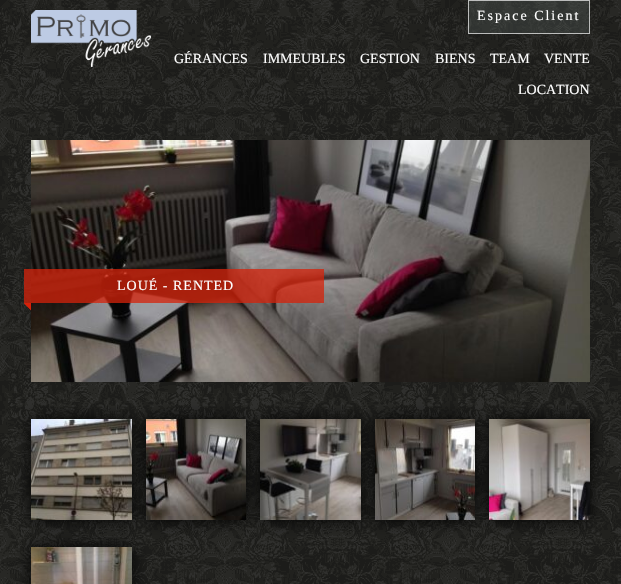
void draw(SkCanvas* canvas) {
    SkPaint paint;
    paint.setAntiAlias(true);
    auto spacedText = [&](const char* s, float x, float y, const SkFont& font, const SkPaint& ink, float letter, float word) {
        std::vector<SkGlyphID> glyphs(font.countText(s, strlen(s), SkTextEncoding::kUTF8));
        std::vector<float> xs(glyphs.size());
        font.textToGlyphs(s, strlen(s), SkTextEncoding::kUTF8, glyphs);
        font.getXPos(glyphs, xs, x);
        float extra = 0;
        for (size_t i = 0; i < glyphs.size(); i++) {
            xs[i] += extra;
            extra += letter + word * (glyphs[i] == font.unicharToGlyph(' '));
        }
        canvas->drawTextBlob(SkTextBlob::MakeFromPosHGlyphs(glyphs, xs, y, font), 0, 0, ink);
    };
    canvas->clear(0xFFFFFFFF);
    canvas->drawImageRect(SkImages::DeferredFromEncodedData(SkData::MakeFromFileName("img1.png")), SkRect::MakeXYWH(0, 0, 621, 584), SkSamplingOptions());
    canvas->drawImageRect(SkImages::DeferredFromEncodedData(SkData::MakeFromFileName("img2.png")), SkRect::MakeXYWH(31, 10, 120, 57), SkSamplingOptions());
    paint.setColor(0x614F5855);
    canvas->drawRect(SkRect::MakeXYWH(468, 0, 122, 34), paint);
    paint.setStyle(SkPaint::kStroke_Style);
    paint.setStrokeWidth(1);
    paint.setColor(0xABFFFFFF);
    canvas->drawRect(SkRect::MakeXYWH(468.5f, 0.5f, 121, 33), paint);
    SkFont font1(fontMgr->matchFamilyStyle("Liberation Serif", SkFontStyle::Normal()), 14);
    font1.setSubpixel(true);
    paint.setStyle(SkPaint::kFill_Style);
    paint.setColor(0xFFFFFFFF);
    spacedText("Espace Client", 477, 20, font1, paint, 2, 0);
    canvas->drawString("GÉRANCES", 174, 63, font1, paint);
    canvas->drawString("IMMEUBLES", 263, 63, font1, paint);
    canvas->drawString("GESTION", 360, 63, font1, paint);
    canvas->drawString("BIENS", 435, 63, font1, paint);
    canvas->drawString("TEAM", 490, 63, font1, paint);
    canvas->drawString("VENTE", 544, 63, font1, paint);
    canvas->drawString("LOCATION", 518, 94, font1, paint);
    canvas->drawImageRect(SkImages::DeferredFromEncodedData(SkData::MakeFromFileName("img3.png")), SkRect::MakeXYWH(31, 140, 559, 242), SkSamplingOptions());
    canvas->drawImageRect(SkImages::DeferredFromEncodedData(SkData::MakeFromFileName("img4.png")), SkRect::MakeXYWH(24, 269, 300, 42), SkSamplingOptions());
    spacedText("LOUÉ - RENTED", 117, 290, font1, paint, 1, 0);
    paint.setColor(0xFF000000);
    paint.setMaskFilter(SkMaskFilter::MakeBlur(kNormal_SkBlurStyle, 8));
    canvas->drawRect(SkRect::MakeXYWH(31, 419, 101, 101), paint);
    paint.setMaskFilter(nullptr);
    canvas->drawImageRect(SkImages::DeferredFromEncodedData(SkData::MakeFromFileName("img5.png")), SkRect::MakeXYWH(31, 419, 101, 101), SkSamplingOptions());
    paint.setMaskFilter(SkMaskFilter::MakeBlur(kNormal_SkBlurStyle, 8));
    canvas->drawRect(SkRect::MakeXYWH(146, 419, 100, 101), paint);
    paint.setMaskFilter(nullptr);
    canvas->drawImageRect(SkImages::DeferredFromEncodedData(SkData::MakeFromFileName("img6.png")), SkRect::MakeXYWH(146, 419, 100, 101), SkSamplingOptions());
    paint.setMaskFilter(SkMaskFilter::MakeBlur(kNormal_SkBlurStyle, 8));
    canvas->drawRect(SkRect::MakeXYWH(260, 419, 101, 101), paint);
    paint.setMaskFilter(nullptr);
    canvas->drawImageRect(SkImages::DeferredFromEncodedData(SkData::MakeFromFileName("img7.png")), SkRect::MakeXYWH(260, 419, 101, 101), SkSamplingOptions());
    paint.setMaskFilter(SkMaskFilter::MakeBlur(kNormal_SkBlurStyle, 8));
    canvas->drawRect(SkRect::MakeXYWH(375, 419, 100, 101), paint);
    paint.setMaskFilter(nullptr);
    canvas->drawImageRect(SkImages::DeferredFromEncodedData(SkData::MakeFromFileName("img8.png")), SkRect::MakeXYWH(375, 419, 100, 101), SkSamplingOptions());
    paint.setMaskFilter(SkMaskFilter::MakeBlur(kNormal_SkBlurStyle, 8));
    canvas->drawRect(SkRect::MakeXYWH(489, 419, 101, 101), paint);
    paint.setMaskFilter(nullptr);
    canvas->drawImageRect(SkImages::DeferredFromEncodedData(SkData::MakeFromFileName("img9.png")), SkRect::MakeXYWH(489, 419, 101, 101), SkSamplingOptions());
    paint.setMaskFilter(SkMaskFilter::MakeBlur(kNormal_SkBlurStyle, 8));
    canvas->drawRect(SkRect::MakeXYWH(31, 547, 101, 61), paint);
    paint.setMaskFilter(nullptr);
    canvas->drawImageRect(SkImages::DeferredFromEncodedData(SkData::MakeFromFileName("img10.png")), SkRect::MakeXYWH(31, 547, 101, 37), SkSamplingOptions());
}
